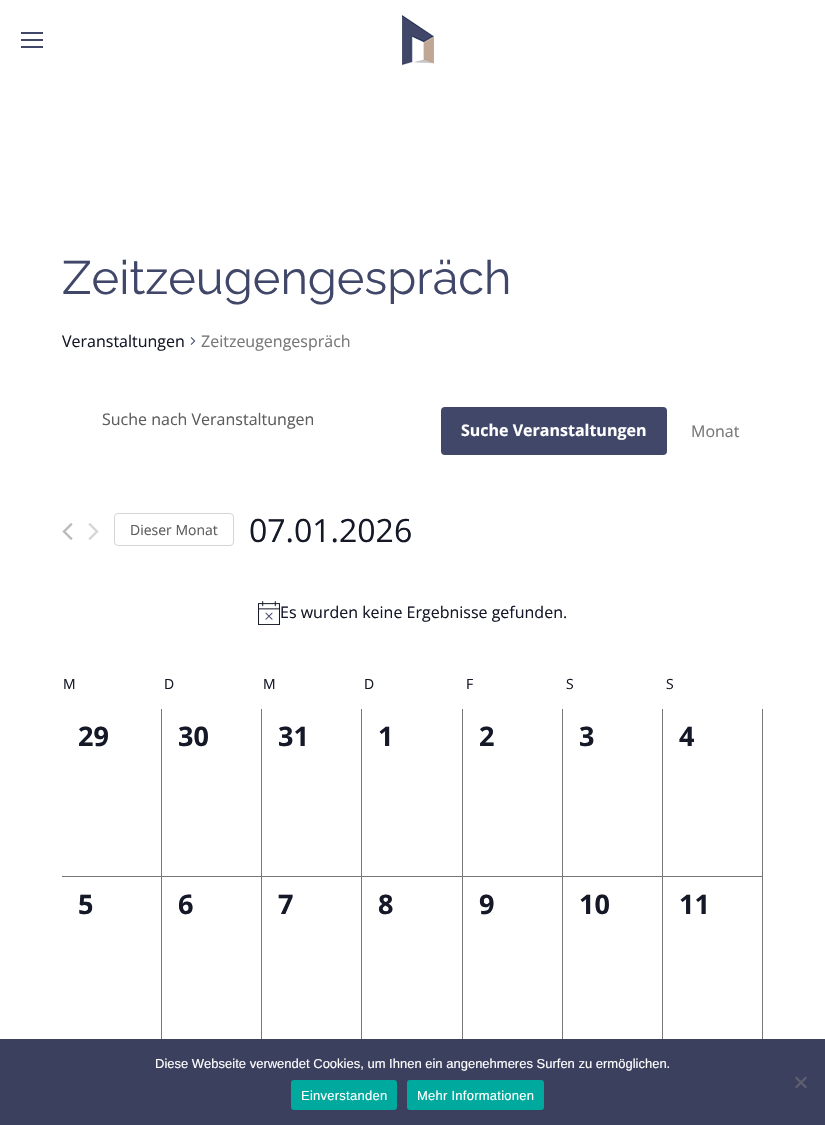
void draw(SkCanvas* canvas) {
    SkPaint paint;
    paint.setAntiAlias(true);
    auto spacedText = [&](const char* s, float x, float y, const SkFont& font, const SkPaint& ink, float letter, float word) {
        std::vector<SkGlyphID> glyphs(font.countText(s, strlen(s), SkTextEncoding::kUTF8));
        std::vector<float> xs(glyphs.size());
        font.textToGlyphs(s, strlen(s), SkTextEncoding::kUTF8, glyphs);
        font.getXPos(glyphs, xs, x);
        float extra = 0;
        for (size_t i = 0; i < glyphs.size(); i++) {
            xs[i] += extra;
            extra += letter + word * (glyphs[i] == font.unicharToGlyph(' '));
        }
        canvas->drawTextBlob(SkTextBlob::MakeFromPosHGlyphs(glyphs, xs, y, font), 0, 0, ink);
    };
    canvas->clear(0xFFFFFFFF);
    paint.setColor(0xFF414769);
    canvas->drawRect(SkRect::MakeXYWH(21, 32, 22, 2), paint);
    canvas->drawRect(SkRect::MakeXYWH(21, 39, 22, 2), paint);
    canvas->drawRect(SkRect::MakeXYWH(21, 46, 22, 2), paint);
    canvas->drawImageRect(SkImages::DeferredFromEncodedData(SkData::MakeFromFileName("img1.png")), SkRect::MakeXYWH(402, 15, 32, 50), SkSamplingOptions());
    SkFont font1(fontMgr->matchFamilyStyle("Raleway", SkFontStyle::Normal()), 47);
    font1.setSubpixel(true);
    canvas->drawString("Zeitzeugengespräch", 62, 294, font1, paint);
    SkFont font2(fontMgr->matchFamilyStyle("Open Sans", SkFontStyle::Normal()), 16);
    font2.setSubpixel(true);
    paint.setColor(0xFF141827);
    canvas->drawString("Veranstaltungen", 62, 347, font2, paint);
    canvas->drawImageRect(SkImages::DeferredFromEncodedData(SkData::MakeFromFileName("img2.png")), SkRect::MakeXYWH(190, 337, 6, 8), SkSamplingOptions());
    paint.setColor(0xFF777777);
    canvas->drawString("Zeitzeugengespräch", 201, 347, font2, paint);
    paint.setColor(0xFF5D5D5D);
    canvas->drawString("Suche nach Veranstaltungen", 102, 425, font2, paint);
    paint.setColor(0xFF414769);
    canvas->drawRoundRect(SkRect::MakeXYWH(441, 407, 226, 48), 4, 4, paint);
    SkFont font3(fontMgr->matchFamilyStyle("Open Sans", SkFontStyle::Bold()), 16);
    font3.setSubpixel(true);
    paint.setColor(0xFFFFFFFF);
    canvas->drawString("Suche Veranstaltungen", 461, 436, font3, paint);
    paint.setColor(0xFF777777);
    canvas->drawString("Monat", 691, 437, font2, paint);
    canvas->drawImageRect(SkImages::DeferredFromEncodedData(SkData::MakeFromFileName("img3.png")), SkRect::MakeXYWH(62, 523, 11, 17), SkSamplingOptions());
    canvas->drawImageRect(SkImages::DeferredFromEncodedData(SkData::MakeFromFileName("img4.png")), SkRect::MakeXYWH(88, 523, 11, 17), SkSamplingOptions());
    paint.setStyle(SkPaint::kStroke_Style);
    paint.setStrokeWidth(1);
    paint.setColor(0xFFD5D5D5);
    canvas->drawRoundRect(SkRect::MakeXYWH(114.5f, 513.5f, 119, 32), 3.5f, 3.5f, paint);
    SkFont font4(fontMgr->matchFamilyStyle("Open Sans", SkFontStyle::Normal()), 14);
    font4.setSubpixel(true);
    paint.setStyle(SkPaint::kFill_Style);
    paint.setColor(0xFF5D5D5D);
    canvas->drawString("Dieser Monat", 130, 535, font4, paint);
    SkFont font5(fontMgr->matchFamilyStyle("Open Sans", SkFontStyle::Normal()), 32);
    font5.setSubpixel(true);
    paint.setColor(0xFF141827);
    canvas->drawString("07.01.2026", 249, 542, font5, paint);
    canvas->drawImageRect(SkImages::DeferredFromEncodedData(SkData::MakeFromFileName("img5.png")), SkRect::MakeXYWH(258, 601, 22, 24), SkSamplingOptions());
    canvas->drawString("Es wurden keine Ergebnisse gefunden.", 280, 618, font2, paint);
    canvas->drawString("M", 63, 689, font4, paint);
    canvas->drawString("D", 164, 689, font4, paint);
    canvas->drawString("M", 263, 689, font4, paint);
    canvas->drawString("D", 364, 689, font4, paint);
    canvas->drawString("F", 466, 689, font4, paint);
    canvas->drawString("S", 566, 689, font4, paint);
    canvas->drawString("S", 666, 689, font4, paint);
    paint.setColor(0xFF777777);
    canvas->drawRect(SkRect::MakeXYWH(161, 709, 1, 336), paint);
    canvas->drawRect(SkRect::MakeXYWH(62, 876, 100, 1), paint);
    SkFont font6(fontMgr->matchFamilyStyle("Open Sans", SkFontStyle::Bold()), 27);
    font6.setSubpixel(true);
    paint.setColor(0xFF141827);
    canvas->drawString("29", 78, 746, font6, paint);
    paint.setColor(0xFF777777);
    canvas->drawRect(SkRect::MakeXYWH(261, 709, 1, 336), paint);
    canvas->drawRect(SkRect::MakeXYWH(162, 876, 100, 1), paint);
    paint.setColor(0xFF141827);
    canvas->drawString("30", 178, 746, font6, paint);
    paint.setColor(0xFF777777);
    canvas->drawRect(SkRect::MakeXYWH(361, 709, 1, 336), paint);
    canvas->drawRect(SkRect::MakeXYWH(262, 876, 100, 1), paint);
    paint.setColor(0xFF141827);
    canvas->drawString("31", 278, 746, font6, paint);
    paint.setColor(0xFF777777);
    canvas->drawRect(SkRect::MakeXYWH(462, 709, 1, 336), paint);
    canvas->drawRect(SkRect::MakeXYWH(362, 876, 101, 1), paint);
    paint.setColor(0xFF141827);
    canvas->drawString("1", 378, 746, font6, paint);
    paint.setColor(0xFF777777);
    canvas->drawRect(SkRect::MakeXYWH(562, 709, 1, 336), paint);
    canvas->drawRect(SkRect::MakeXYWH(463, 876, 100, 1), paint);
    paint.setColor(0xFF141827);
    canvas->drawString("2", 479, 746, font6, paint);
    paint.setColor(0xFF777777);
    canvas->drawRect(SkRect::MakeXYWH(662, 709, 1, 336), paint);
    canvas->drawRect(SkRect::MakeXYWH(563, 876, 100, 1), paint);
    paint.setColor(0xFF141827);
    canvas->drawString("3", 579, 746, font6, paint);
    paint.setColor(0xFF777777);
    canvas->drawRect(SkRect::MakeXYWH(762, 709, 1, 336), paint);
    canvas->drawRect(SkRect::MakeXYWH(663, 876, 100, 1), paint);
    paint.setColor(0xFF141827);
    canvas->drawString("4", 679, 746, font6, paint);
    canvas->drawString("5", 78, 914, font6, paint);
    canvas->drawString("6", 178, 914, font6, paint);
    canvas->drawString("7", 278, 914, font6, paint);
    canvas->drawString("8", 378, 914, font6, paint);
    canvas->drawString("9", 479, 914, font6, paint);
    canvas->drawString("10", 579, 914, font6, paint);
    canvas->drawString("11", 679, 914, font6, paint);
    paint.setColor(0xFF3C405F);
    canvas->drawRect(SkRect::MakeXYWH(0, 1039, 825, 86), paint);
    SkFont font7(fontMgr->matchFamilyStyle("Liberation Sans", SkFontStyle::Normal()), 13);
    font7.setSubpixel(true);
    paint.setColor(0xFFFFFFFF);
    canvas->drawString("Diese Webseite verwendet Cookies, um Ihnen ein angenehmeres Surfen zu ermöglichen.", 155, 1068, font7, paint);
    paint.setColor(0xFF5E6070);
    canvas->drawPath(SkPathBuilder().moveTo(805.5f, 1076.5f).lineTo(807, 1078).lineTo(796.5f, 1088.5f).lineTo(795, 1087).close().detach(), paint);
    canvas->drawPath(SkPathBuilder().moveTo(795, 1078).lineTo(796.5f, 1076.5f).lineTo(807, 1087).lineTo(805.5f, 1088.5f).close().detach(), paint);
    paint.setColor(0xFF00A99D);
    canvas->drawRoundRect(SkRect::MakeXYWH(291, 1080, 106, 30), 3, 3, paint);
    paint.setColor(0xFFFFFFFF);
    spacedText("Einverstanden", 301, 1100, font7, paint, 0.25f, 0);
    paint.setColor(0xFF00A99D);
    canvas->drawRoundRect(SkRect::MakeXYWH(407, 1080, 137, 30), 3, 3, paint);
    paint.setColor(0xFFFFFFFF);
    spacedText("Mehr Informationen", 417, 1100, font7, paint, 0.25f, 0);
}
